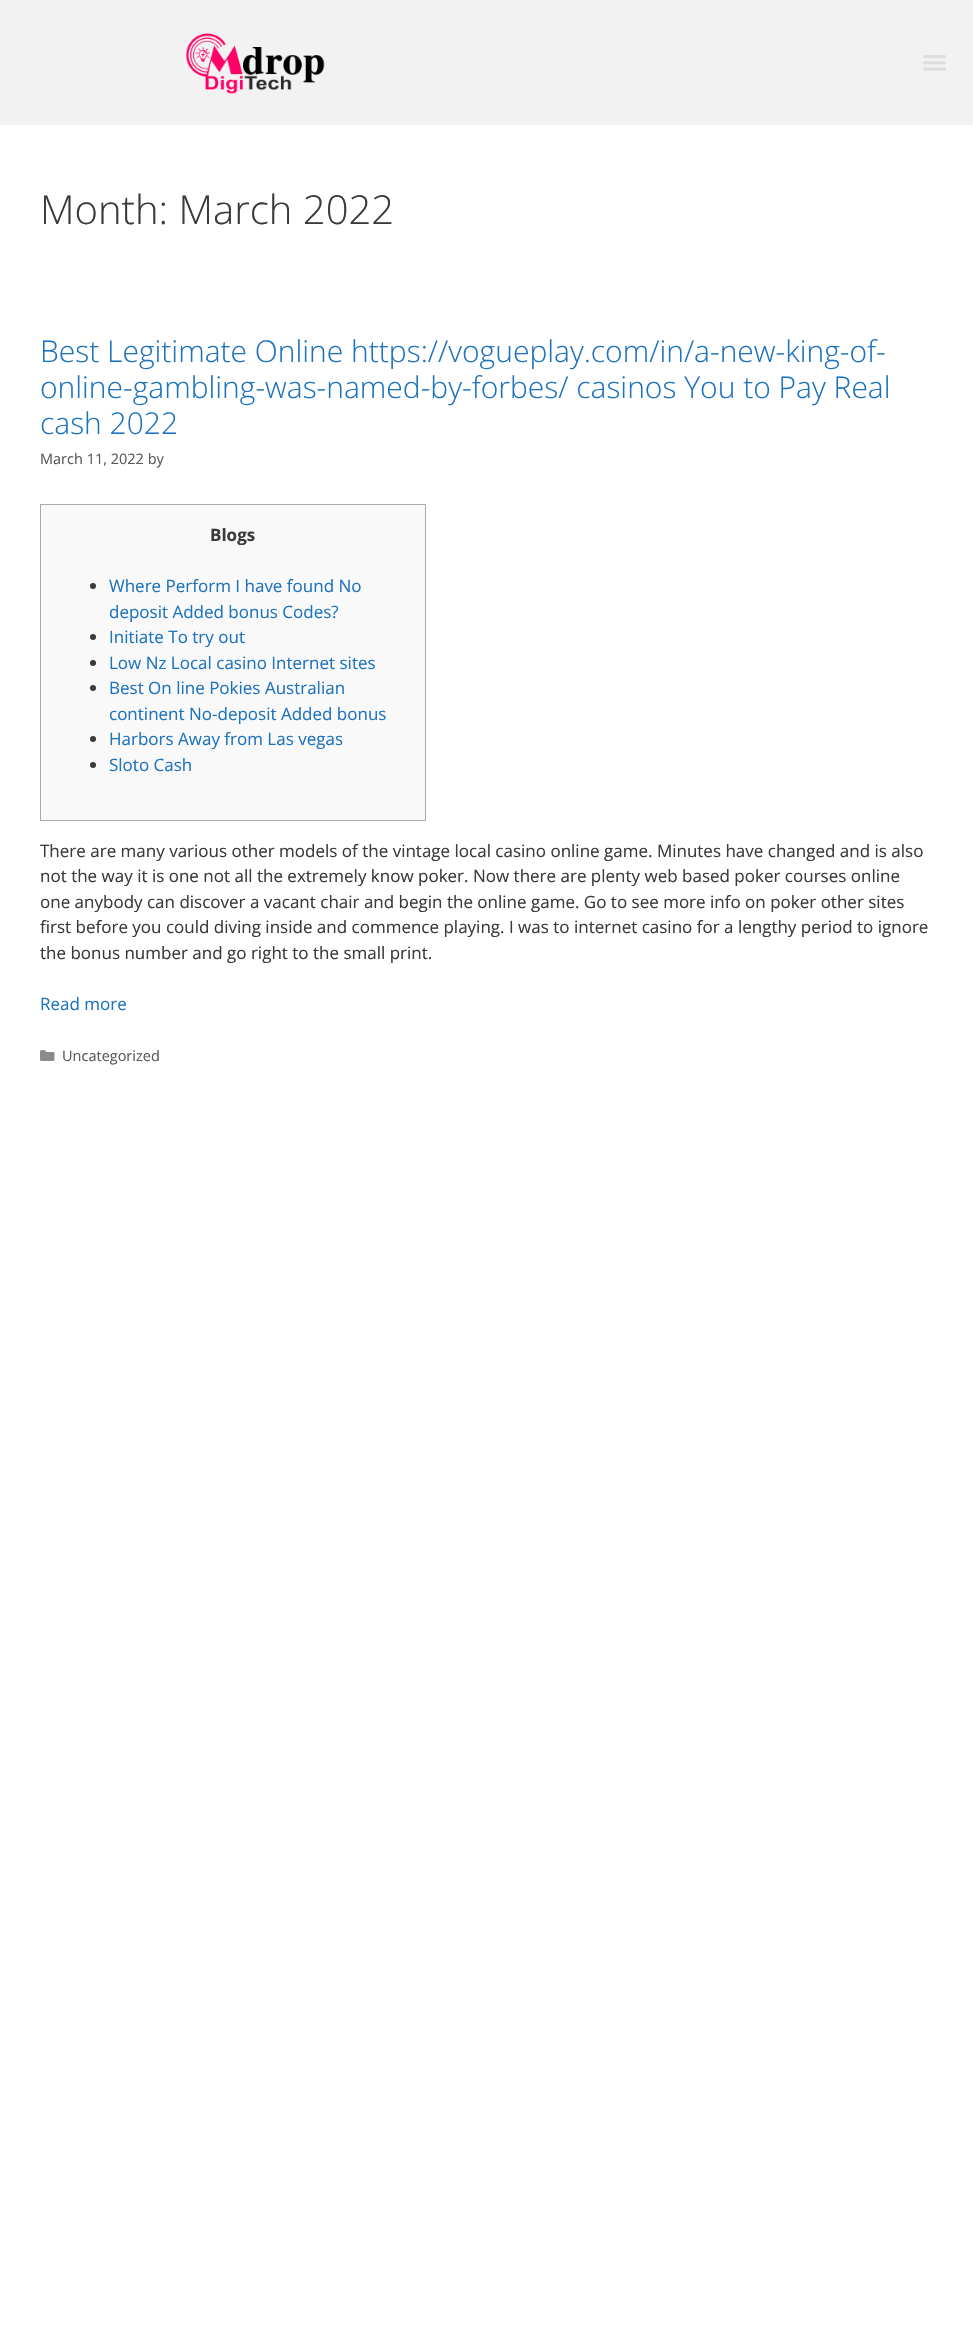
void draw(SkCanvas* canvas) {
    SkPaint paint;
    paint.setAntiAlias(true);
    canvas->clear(0xFFFFFFFF);
    paint.setColor(0xFFF2F2F2);
    canvas->drawRect(SkRect::MakeXYWH(0, 0, 973, 125), paint);
    canvas->drawImageRect(SkImages::DeferredFromEncodedData(SkData::MakeFromFileName("img1.png")), SkRect::MakeXYWH(186, 33, 139, 61), SkSamplingOptions());
    canvas->drawImageRect(SkImages::DeferredFromEncodedData(SkData::MakeFromFileName("img2.png")), SkRect::MakeXYWH(923, 55, 23, 16), SkSamplingOptions());
    SkFont font1(fontMgr->matchFamilyStyle("Open Sans", SkFontStyle(300, SkFontStyle::kNormal_Width, SkFontStyle::kUpright_Slant)), 40);
    font1.setSubpixel(true);
    paint.setColor(0xFF3A3A3A);
    canvas->drawString("Month: March 2022", 40, 224, font1, paint);
    SkFont font2(fontMgr->matchFamilyStyle("Open Sans", SkFontStyle(300, SkFontStyle::kNormal_Width, SkFontStyle::kUpright_Slant)), 30);
    font2.setSubpixel(true);
    paint.setColor(0xFF1E73BE);
    canvas->drawString("Best Legitimate Online https://vogueplay.com/in/a-new-king-of-", 40, 362, font2, paint);
    canvas->drawString("online-gambling-was-named-by-forbes/ casinos You to Pay Real", 40, 398, font2, paint);
    canvas->drawString("cash 2022", 40, 434, font2, paint);
    SkFont font3(fontMgr->matchFamilyStyle("Open Sans", SkFontStyle::Normal()), 14.5f);
    font3.setSubpixel(true);
    paint.setColor(0xFF595959);
    canvas->drawString("March 11, 2022 by", 40, 464, font3, paint);
    paint.setColor(0xFFF9F9F9);
    canvas->drawRect(SkRect::MakeXYWH(40.5f, 504.5f, 385, 316), paint);
    paint.setStyle(SkPaint::kStroke_Style);
    paint.setStrokeWidth(1);
    paint.setColor(0xFFAAAAAA);
    canvas->drawRect(SkRect::MakeXYWH(40.5f, 504.5f, 385, 316), paint);
    SkFont font4(fontMgr->matchFamilyStyle("Open Sans", SkFontStyle::Bold()), 17);
    font4.setSubpixel(true);
    paint.setStyle(SkPaint::kFill_Style);
    paint.setColor(0xFF3A3A3A);
    canvas->drawString("Blogs", 210, 541, font4, paint);
    canvas->drawCircle(93, 586, 3, paint);
    SkFont font5(fontMgr->matchFamilyStyle("Open Sans", SkFontStyle::Normal()), 17);
    font5.setSubpixel(true);
    paint.setColor(0xFF1E73BE);
    canvas->drawString("Where Perform I have found No", 109, 592, font5, paint);
    canvas->drawString("deposit Added bonus Codes?", 109, 618, font5, paint);
    paint.setColor(0xFF3A3A3A);
    canvas->drawCircle(93, 637, 3, paint);
    paint.setColor(0xFF1E73BE);
    canvas->drawString("Initiate To try out", 109, 643, font5, paint);
    paint.setColor(0xFF3A3A3A);
    canvas->drawCircle(93, 663, 3, paint);
    paint.setColor(0xFF1E73BE);
    canvas->drawString("Low Nz Local casino Internet sites", 109, 669, font5, paint);
    paint.setColor(0xFF3A3A3A);
    canvas->drawCircle(93, 688, 3, paint);
    paint.setColor(0xFF1E73BE);
    canvas->drawString("Best On line Pokies Australian", 109, 694, font5, paint);
    canvas->drawString("continent No-deposit Added bonus", 109, 720, font5, paint);
    paint.setColor(0xFF3A3A3A);
    canvas->drawCircle(93, 739, 3, paint);
    paint.setColor(0xFF1E73BE);
    canvas->drawString("Harbors Away from Las vegas", 109, 745, font5, paint);
    paint.setColor(0xFF3A3A3A);
    canvas->drawCircle(93, 765, 3, paint);
    paint.setColor(0xFF1E73BE);
    canvas->drawString("Sloto Cash", 109, 771, font5, paint);
    paint.setColor(0xFF3A3A3A);
    canvas->drawString("There are many various other models of the vintage local casino online game. Minutes have changed and is also", 40, 857, font5, paint);
    canvas->drawString("not the way it is one not all the extremely know poker. Now there are plenty web based poker courses online", 40, 882, font5, paint);
    canvas->drawString("one anybody can discover a vacant chair and begin the online game. Go to see more info on poker other sites", 40, 908, font5, paint);
    canvas->drawString("first before you could diving inside and commence playing. I was to internet casino for a lengthy period to ignore", 40, 933, font5, paint);
    canvas->drawString("the bonus number and go right to the small print.", 40, 959, font5, paint);
    paint.setColor(0xFF1E73BE);
    canvas->drawString("Read more", 40, 1010, font5, paint);
    canvas->drawImageRect(SkImages::DeferredFromEncodedData(SkData::MakeFromFileName("img3.png")), SkRect::MakeXYWH(40, 1050, 15, 11), SkSamplingOptions());
    paint.setColor(0xFF595959);
    canvas->drawString("Uncategorized", 62, 1061, font3, paint);
}
